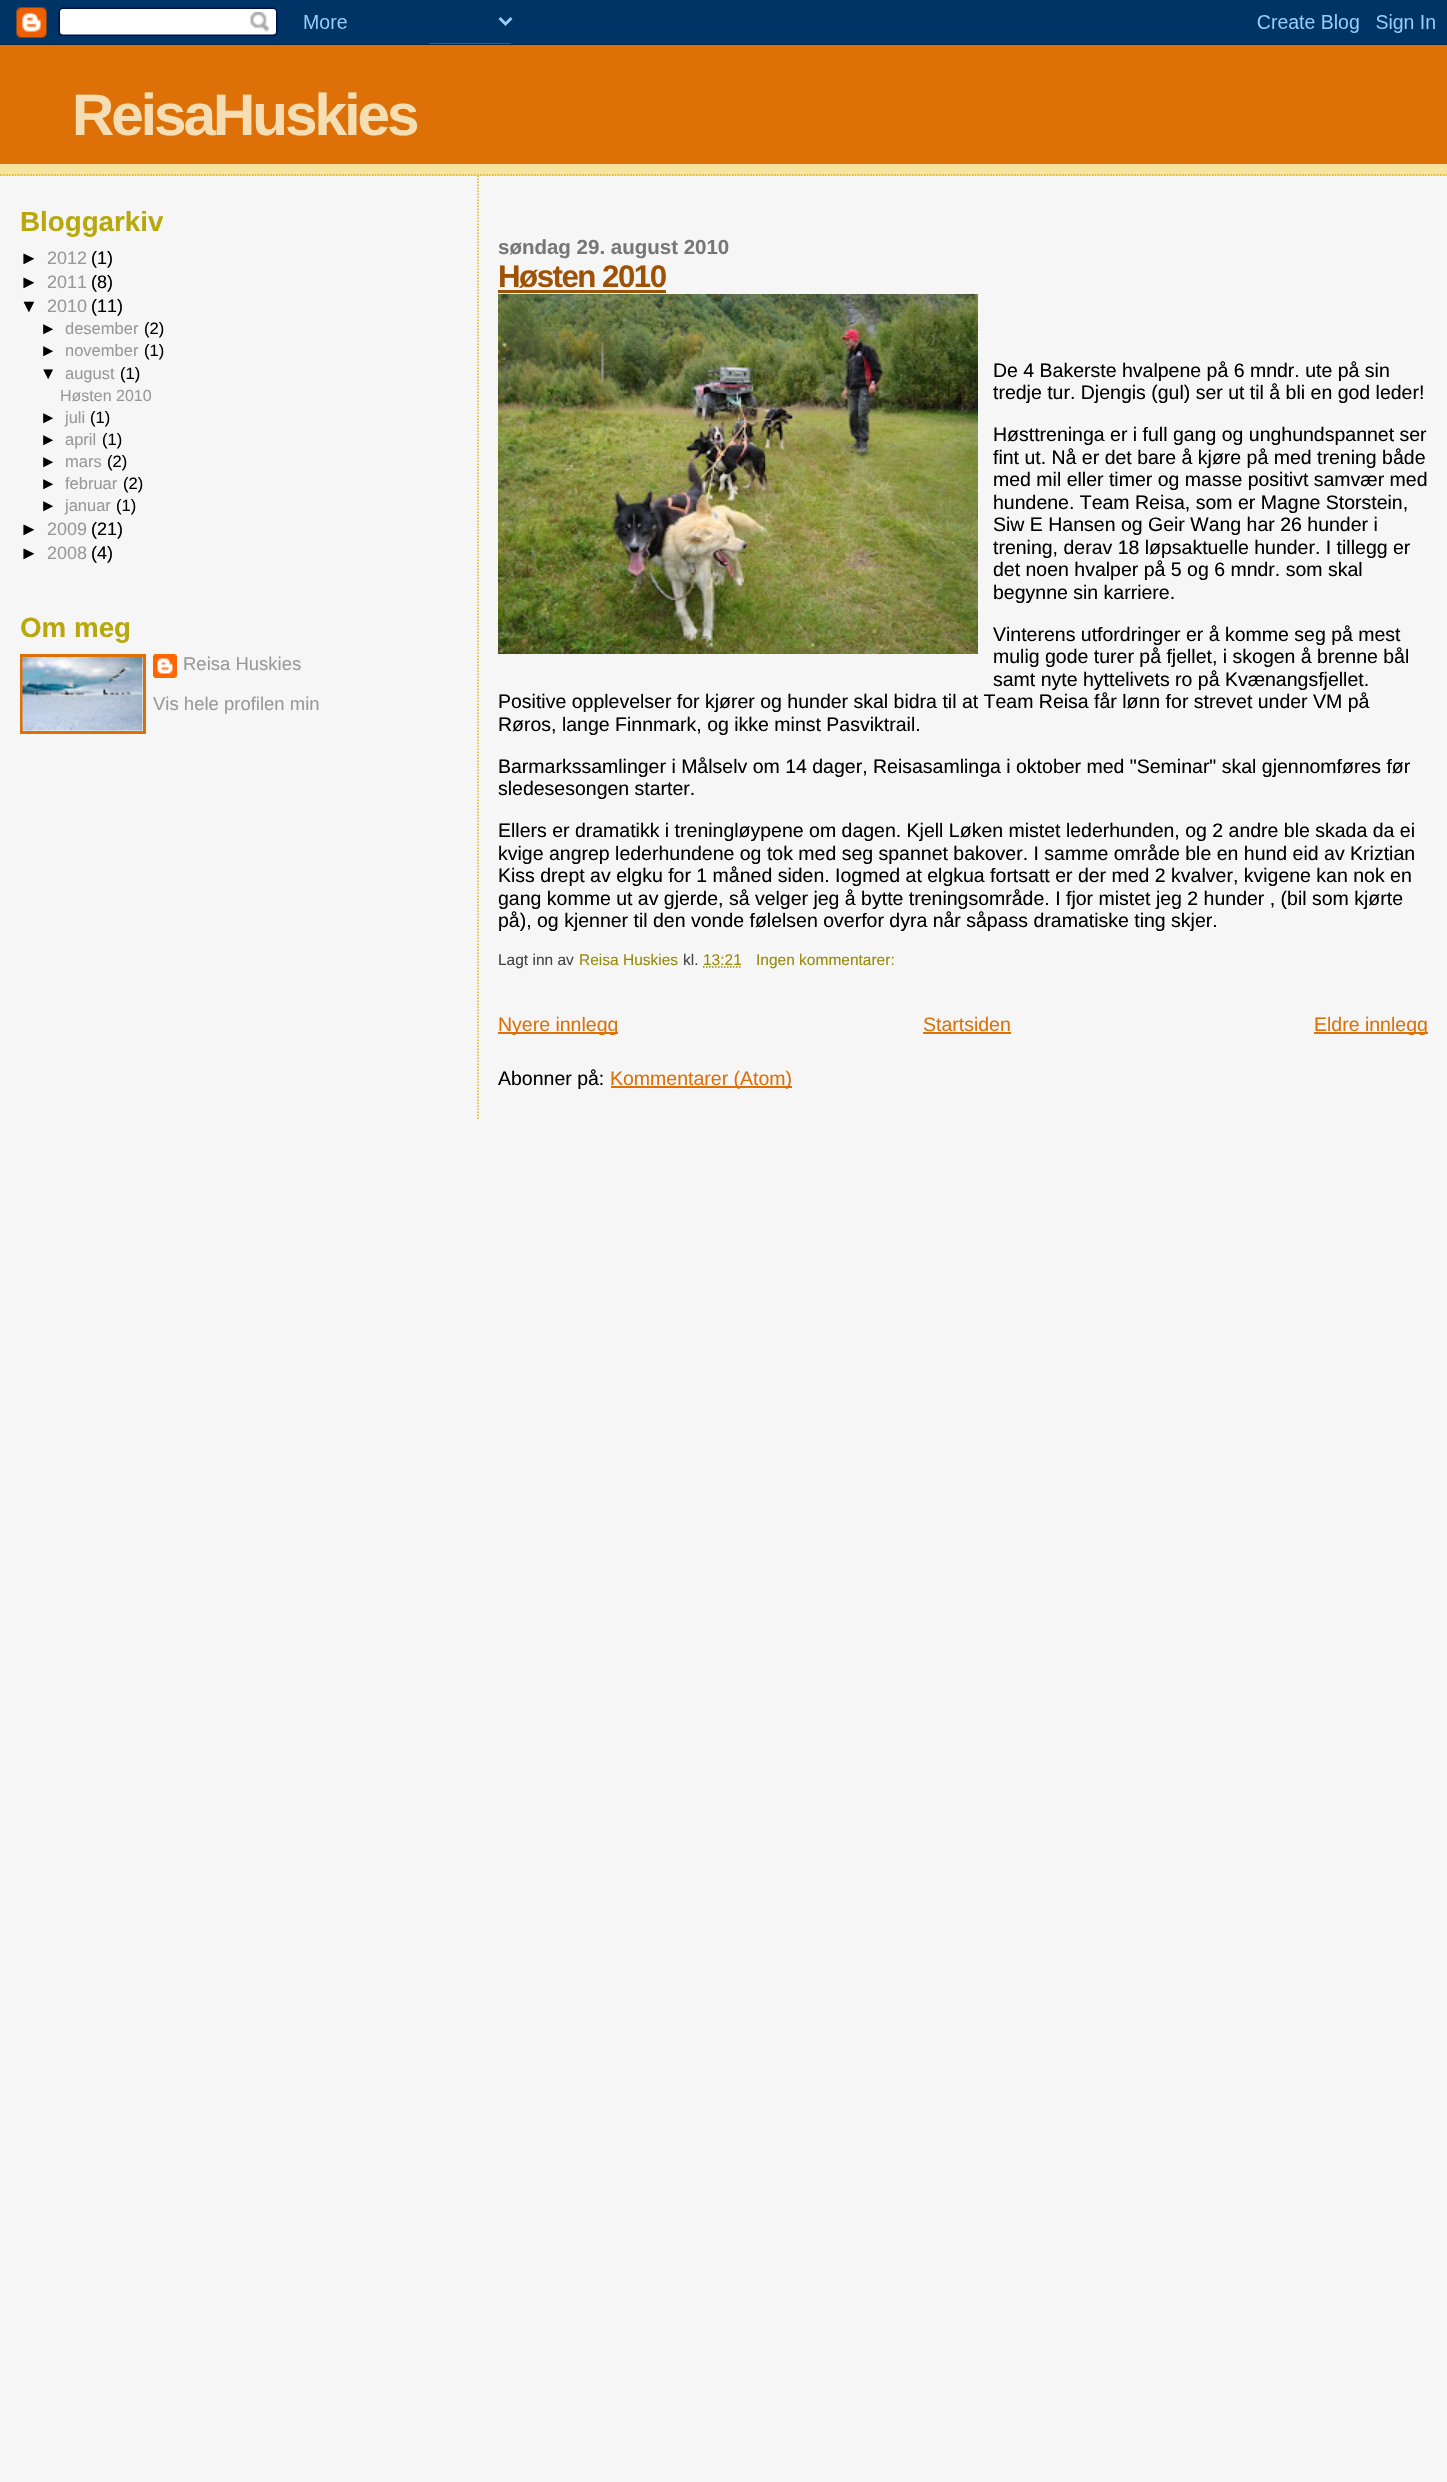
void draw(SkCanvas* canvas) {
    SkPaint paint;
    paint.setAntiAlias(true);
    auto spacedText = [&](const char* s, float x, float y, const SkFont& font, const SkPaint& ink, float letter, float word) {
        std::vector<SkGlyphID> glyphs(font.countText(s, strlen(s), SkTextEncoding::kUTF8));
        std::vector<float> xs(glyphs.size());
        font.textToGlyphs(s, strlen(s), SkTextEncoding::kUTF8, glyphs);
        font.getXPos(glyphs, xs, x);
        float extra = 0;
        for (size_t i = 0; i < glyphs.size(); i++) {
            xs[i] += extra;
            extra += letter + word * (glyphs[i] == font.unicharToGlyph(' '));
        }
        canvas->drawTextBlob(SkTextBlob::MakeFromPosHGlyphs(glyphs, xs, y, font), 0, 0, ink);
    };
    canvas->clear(0xFFF6F6F6);
    canvas->drawImageRect(SkImages::DeferredFromEncodedData(SkData::MakeFromFileName("img1.png")), SkRect::MakeXYWH(0, 0, 1447, 45), SkSamplingOptions());
    paint.setColor(0xFFF5E39E);
    canvas->drawRect(SkRect::MakeXYWH(0, 164, 1447, 12), paint);
    paint.setStyle(SkPaint::kStroke_Style);
    paint.setStrokeWidth(1.5f);
    paint.setColor(0xFFE0AD12);
    paint.setPathEffect(SkDashPathEffect::Make({{1.5f, 1.5f}}, 0));
    canvas->drawPath(SkPathBuilder().moveTo(0, 175).lineTo(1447.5f, 175).detach(), paint);
    paint.setPathEffect(nullptr);
    paint.setStyle(SkPaint::kFill_Style);
    paint.setColor(0xFFDE7008);
    canvas->drawRect(SkRect::MakeXYWH(0, 45, 1447, 119), paint);
    SkFont font1(fontMgr->matchFamilyStyle("Liberation Sans", SkFontStyle::Bold()), 58.5f);
    font1.setSubpixel(true);
    paint.setColor(0xFFF5DEB3);
    spacedText("ReisaHuskies", 72, 135, font1, paint, -3, 0);
    SkFont font2(fontMgr->matchFamilyStyle("Liberation Sans", SkFontStyle::Bold()), 27.75f);
    font2.setSubpixel(true);
    paint.setColor(0xFFB8A80D);
    canvas->drawString("Bloggarkiv", 20, 231, font2, paint);
    SkFont font3(fontMgr->matchFamilyStyle("Liberation Sans", SkFontStyle::Normal()), 18);
    font3.setSubpixel(true);
    paint.setColor(0xFF000000);
    canvas->drawString("►", 20, 264, font3, paint);
    paint.setColor(0xFF999999);
    canvas->drawString("2012", 47, 264, font3, paint);
    paint.setColor(0xFF000000);
    canvas->drawString("(1)", 91, 264, font3, paint);
    canvas->drawString("►", 20, 288, font3, paint);
    paint.setColor(0xFF999999);
    canvas->drawString("2011", 47, 288, font3, paint);
    paint.setColor(0xFF000000);
    canvas->drawString("(8)", 91, 288, font3, paint);
    canvas->drawString("▼", 20, 312, font3, paint);
    paint.setColor(0xFF999999);
    canvas->drawString("2010", 47, 312, font3, paint);
    paint.setColor(0xFF000000);
    canvas->drawString("(11)", 91, 312, font3, paint);
    SkFont font4(fontMgr->matchFamilyStyle("Liberation Sans", SkFontStyle::Normal()), 16.5f);
    font4.setSubpixel(true);
    canvas->drawString("►", 40, 334, font4, paint);
    paint.setColor(0xFF999999);
    canvas->drawString("desember", 65, 334, font4, paint);
    paint.setColor(0xFF000000);
    canvas->drawString("(2)", 144, 334, font4, paint);
    canvas->drawString("►", 40, 356, font4, paint);
    paint.setColor(0xFF999999);
    canvas->drawString("november", 65, 356, font4, paint);
    paint.setColor(0xFF000000);
    canvas->drawString("(1)", 144, 356, font4, paint);
    canvas->drawString("▼", 40, 379, font4, paint);
    paint.setColor(0xFF999999);
    canvas->drawString("august", 65, 379, font4, paint);
    paint.setColor(0xFF000000);
    canvas->drawString("(1)", 120, 379, font4, paint);
    SkFont font5(fontMgr->matchFamilyStyle("Liberation Sans", SkFontStyle::Normal()), 16);
    font5.setSubpixel(true);
    paint.setColor(0xFF999999);
    canvas->drawString("Høsten 2010", 60, 401, font5, paint);
    paint.setColor(0xFF000000);
    canvas->drawString("►", 40, 423, font4, paint);
    paint.setColor(0xFF999999);
    canvas->drawString("juli", 65, 423, font4, paint);
    paint.setColor(0xFF000000);
    canvas->drawString("(1)", 90, 423, font4, paint);
    canvas->drawString("►", 40, 445, font4, paint);
    paint.setColor(0xFF999999);
    canvas->drawString("april", 65, 445, font4, paint);
    paint.setColor(0xFF000000);
    canvas->drawString("(1)", 102, 445, font4, paint);
    canvas->drawString("►", 40, 467, font4, paint);
    paint.setColor(0xFF999999);
    canvas->drawString("mars", 65, 467, font4, paint);
    paint.setColor(0xFF000000);
    canvas->drawString("(2)", 107, 467, font4, paint);
    canvas->drawString("►", 40, 489, font4, paint);
    paint.setColor(0xFF999999);
    canvas->drawString("februar", 65, 489, font4, paint);
    paint.setColor(0xFF000000);
    canvas->drawString("(2)", 123, 489, font4, paint);
    canvas->drawString("►", 40, 511, font4, paint);
    paint.setColor(0xFF999999);
    canvas->drawString("januar", 65, 511, font4, paint);
    paint.setColor(0xFF000000);
    canvas->drawString("(1)", 116, 511, font4, paint);
    canvas->drawString("►", 20, 535, font3, paint);
    paint.setColor(0xFF999999);
    canvas->drawString("2009", 47, 535, font3, paint);
    paint.setColor(0xFF000000);
    canvas->drawString("(21)", 91, 535, font3, paint);
    canvas->drawString("►", 20, 559, font3, paint);
    paint.setColor(0xFF999999);
    canvas->drawString("2008", 47, 559, font3, paint);
    paint.setColor(0xFF000000);
    canvas->drawString("(4)", 91, 559, font3, paint);
    paint.setColor(0xFFB8A80D);
    canvas->drawString("Om meg", 20, 637, font2, paint);
    paint.setStyle(SkPaint::kStroke_Style);
    paint.setStrokeWidth(3);
    paint.setColor(0xFFDE7008);
    canvas->drawRect(SkRect::MakeXYWH(21.5f, 655.5f, 123, 77), paint);
    canvas->drawImageRect(SkImages::DeferredFromEncodedData(SkData::MakeFromFileName("img2.png")), SkRect::MakeXYWH(22, 657, 121, 74), SkSamplingOptions());
    canvas->drawImageRect(SkImages::DeferredFromEncodedData(SkData::MakeFromFileName("img3.png")), SkRect::MakeXYWH(153, 654, 24, 24), SkSamplingOptions());
    SkFont font6(fontMgr->matchFamilyStyle("Liberation Sans", SkFontStyle::Normal()), 18.5f);
    font6.setSubpixel(true);
    paint.setStyle(SkPaint::kFill_Style);
    paint.setColor(0xFF999999);
    canvas->drawString("Reisa Huskies", 183, 670, font6, paint);
    canvas->drawString("Vis hele profilen min", 153, 710, font6, paint);
    paint.setStyle(SkPaint::kStroke_Style);
    paint.setStrokeWidth(1.5f);
    paint.setColor(0xFFE0AD12);
    paint.setPathEffect(SkDashPathEffect::Make({{1.5f, 1.5f}}, 0));
    canvas->drawPath(SkPathBuilder().moveTo(478, 175.5f).lineTo(478, 1119).detach(), paint);
    paint.setPathEffect(nullptr);
    SkFont font7(fontMgr->matchFamilyStyle("Liberation Sans", SkFontStyle::Bold()), 20.5f);
    font7.setSubpixel(true);
    paint.setStyle(SkPaint::kFill_Style);
    paint.setColor(0xFF777777);
    canvas->drawString("søndag 29. august 2010", 498, 254, font7, paint);
    SkFont font8(fontMgr->matchFamilyStyle("Liberation Sans", SkFontStyle::Bold()), 31.25f);
    font8.setSubpixel(true);
    paint.setColor(0xFF9E5205);
    spacedText("Høsten 2010", 498, 287, font8, paint, -1.5f, 0);
    canvas->drawRect(SkRect::MakeXYWH(498, 290, 168, 3), paint);
    canvas->drawImageRect(SkImages::DeferredFromEncodedData(SkData::MakeFromFileName("img4.png")), SkRect::MakeXYWH(498, 294, 480, 360), SkSamplingOptions());
    SkFont font9(fontMgr->matchFamilyStyle("Liberation Sans", SkFontStyle::Normal()), 19.5f);
    font9.setSubpixel(true);
    paint.setColor(0xFF000000);
    canvas->drawString("De 4 Bakerste hvalpene på 6 mndr. ute på sin", 993, 377, font9, paint);
    canvas->drawString("tredje tur. Djengis (gul) ser ut til å bli en god leder!", 993, 399, font9, paint);
    canvas->drawString("Høsttreninga er i full gang og unghundspannet ser", 993, 441, font9, paint);
    canvas->drawString("fint ut. Nå er det bare å kjøre på med trening både", 993, 464, font9, paint);
    canvas->drawString("med mil eller timer og masse positivt samvær med", 993, 486, font9, paint);
    canvas->drawString("hundene. Team Reisa, som er Magne Storstein,", 993, 509, font9, paint);
    canvas->drawString("Siw E Hansen og Geir Wang har 26 hunder i", 993, 531, font9, paint);
    canvas->drawString("trening, derav 18 løpsaktuelle hunder. I tillegg er", 993, 554, font9, paint);
    canvas->drawString("det noen hvalper på 5 og 6 mndr. som skal", 993, 576, font9, paint);
    canvas->drawString("begynne sin karriere.", 993, 599, font9, paint);
    canvas->drawString("Vinterens utfordringer er å komme seg på mest", 993, 641, font9, paint);
    canvas->drawString("mulig gode turer på fjellet, i skogen å brenne bål", 993, 663, font9, paint);
    canvas->drawString("samt nyte hyttelivets ro på Kvænangsfjellet.", 993, 686, font9, paint);
    canvas->drawString("Positive opplevelser for kjører og hunder skal bidra til at Team Reisa får lønn for strevet under VM på", 498, 708, font9, paint);
    canvas->drawString("Røros, lange Finnmark, og ikke minst Pasviktrail.", 498, 731, font9, paint);
    canvas->drawString("Barmarkssamlinger i Målselv om 14 dager, Reisasamlinga i oktober med \"Seminar\" skal gjennomføres før", 498, 773, font9, paint);
    canvas->drawString("sledesesongen starter.", 498, 795, font9, paint);
    canvas->drawString("Ellers er dramatikk i treningløypene om dagen. Kjell Løken mistet lederhunden, og 2 andre ble skada da ei", 498, 837, font9, paint);
    canvas->drawString("kvige angrep lederhundene og tok med seg spannet bakover. I samme område ble en hund eid av Kriztian", 498, 860, font9, paint);
    canvas->drawString("Kiss drept av elgku for 1 måned siden. Iogmed at elgkua fortsatt er der med 2 kvalver, kvigene kan nok en", 498, 882, font9, paint);
    canvas->drawString("gang komme ut av gjerde, så velger jeg å bytte treningsområde. I fjor mistet jeg 2 hunder , (bil som kjørte", 498, 905, font9, paint);
    canvas->drawString("på), og kjenner til den vonde følelsen overfor dyra når såpass dramatiske ting skjer.", 498, 927, font9, paint);
    SkFont font10(fontMgr->matchFamilyStyle("Liberation Sans", SkFontStyle::Normal()), 15.5f);
    font10.setSubpixel(true);
    paint.setColor(0xFF444444);
    canvas->drawString("Lagt inn av", 498, 965, font10, paint);
    paint.setColor(0xFF968A0A);
    canvas->drawString("Reisa Huskies", 579, 965, font10, paint);
    paint.setColor(0xFF444444);
    canvas->drawString("kl.", 683, 965, font10, paint);
    paint.setColor(0xFF968A0A);
    canvas->drawString("13:21", 703, 965, font10, paint);
    paint.setStyle(SkPaint::kStroke_Style);
    paint.setPathEffect(SkDashPathEffect::Make({{1.5f, 1.5f}}, 0));
    canvas->drawPath(SkPathBuilder().moveTo(703, 967).lineTo(742, 967).detach(), paint);
    paint.setPathEffect(nullptr);
    paint.setStyle(SkPaint::kFill_Style);
    canvas->drawString("Ingen kommentarer:", 756, 965, font10, paint);
    paint.setColor(0xFFDE7008);
    canvas->drawRect(SkRect::MakeXYWH(498, 1032, 120, 2), paint);
    canvas->drawString("Nyere innlegg", 498, 1031, font9, paint);
    canvas->drawString("Startsiden", 923, 1031, font9, paint);
    canvas->drawRect(SkRect::MakeXYWH(923, 1032, 88, 2), paint);
    canvas->drawRect(SkRect::MakeXYWH(1314, 1032, 114, 2), paint);
    canvas->drawString("Eldre innlegg", 1314, 1031, font9, paint);
    paint.setColor(0xFF000000);
    canvas->drawString("Abonner på:", 498, 1085, font9, paint);
    paint.setColor(0xFFDE7008);
    canvas->drawRect(SkRect::MakeXYWH(611, 1086, 181, 2), paint);
    canvas->drawString("Kommentarer (Atom)", 610, 1085, font9, paint);
}
